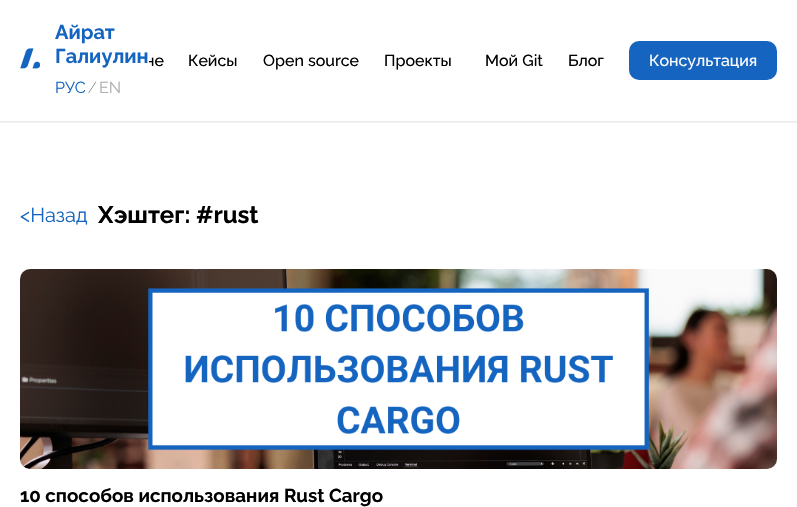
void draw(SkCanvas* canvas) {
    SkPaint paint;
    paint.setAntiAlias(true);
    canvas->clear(0xFFFFFFFF);
    canvas->save();
    canvas->clipRect(SkRect::MakeXYWH(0, 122, 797, 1));
    paint.setColor(0x33223C50);
    paint.setMaskFilter(SkMaskFilter::MakeBlur(kNormal_SkBlurStyle, 1));
    canvas->drawRect(SkRect::MakeXYWH(0, 0, 797, 122), paint);
    paint.setMaskFilter(nullptr);
    canvas->restore();
    paint.setColor(0xFFEAEAEA);
    canvas->drawRect(SkRect::MakeXYWH(0, 121, 797, 1), paint);
    canvas->drawImageRect(SkImages::DeferredFromEncodedData(SkData::MakeFromFileName("img1.png")), SkRect::MakeXYWH(20, 48, 20, 21), SkSamplingOptions());
    SkFont font1(fontMgr->matchFamilyStyle("Raleway", SkFontStyle::Bold()), 20);
    font1.setSubpixel(true);
    paint.setColor(0xFF1565C0);
    canvas->drawString("Айрат", 55, 39, font1, paint);
    canvas->drawString("Галиулин", 55, 63, font1, paint);
    SkFont font2(fontMgr->matchFamilyStyle("Raleway", SkFontStyle::Normal()), 16);
    font2.setSubpixel(true);
    canvas->drawString("РУС", 55, 93, font2, paint);
    SkFont font3(fontMgr->matchFamilyStyle("Raleway", SkFontStyle(100, SkFontStyle::kNormal_Width, SkFontStyle::kUpright_Slant)), 16);
    font3.setSubpixel(true);
    paint.setColor(0xFF333333);
    canvas->drawString("/", 88, 93, font3, paint);
    paint.setColor(0xFFAFAFAF);
    canvas->drawString("EN", 99, 93, font2, paint);
    canvas->save();
    canvas->clipRect(SkRect::MakeXYWH(149, 41, 628, 39));
    SkFont font4(fontMgr->matchFamilyStyle("Raleway", SkFontStyle(500, SkFontStyle::kNormal_Width, SkFontStyle::kUpright_Slant)), 16);
    font4.setSubpixel(true);
    paint.setColor(0xFF000000);
    canvas->drawString("не", 145, 66, font4, paint);
    canvas->restore();
    canvas->drawString("Кейсы", 188, 66, font4, paint);
    canvas->drawString("Open source", 263, 66, font4, paint);
    canvas->drawString("Проекты", 384, 66, font4, paint);
    canvas->drawString("Мой Git", 485, 66, font4, paint);
    canvas->drawString("Блог", 568, 66, font4, paint);
    paint.setColor(0xFF1565C0);
    canvas->drawRoundRect(SkRect::MakeXYWH(629, 41, 148, 39), 10, 10, paint);
    paint.setColor(0xFFFFFFFF);
    canvas->drawString("Консультация", 649, 66, font4, paint);
    SkFont font5(fontMgr->matchFamilyStyle("Raleway", SkFontStyle::Normal()), 20);
    font5.setSubpixel(true);
    paint.setColor(0xFF1565C0);
    canvas->drawString("<Назад", 20, 222, font5, paint);
    SkFont font6(fontMgr->matchFamilyStyle("Raleway", SkFontStyle::Bold()), 24);
    font6.setSubpixel(true);
    paint.setColor(0xFF000000);
    canvas->drawString("Хэштег: #rust", 98, 223, font6, paint);
    canvas->drawImageRect(SkImages::DeferredFromEncodedData(SkData::MakeFromFileName("img2.png")), SkRect::MakeXYWH(20, 269, 757, 200), SkSamplingOptions());
    SkFont font7(fontMgr->matchFamilyStyle("Raleway", SkFontStyle::Bold()), 18.75f);
    font7.setSubpixel(true);
    canvas->drawString("10 способов использования Rust Cargo", 20, 502, font7, paint);
}
